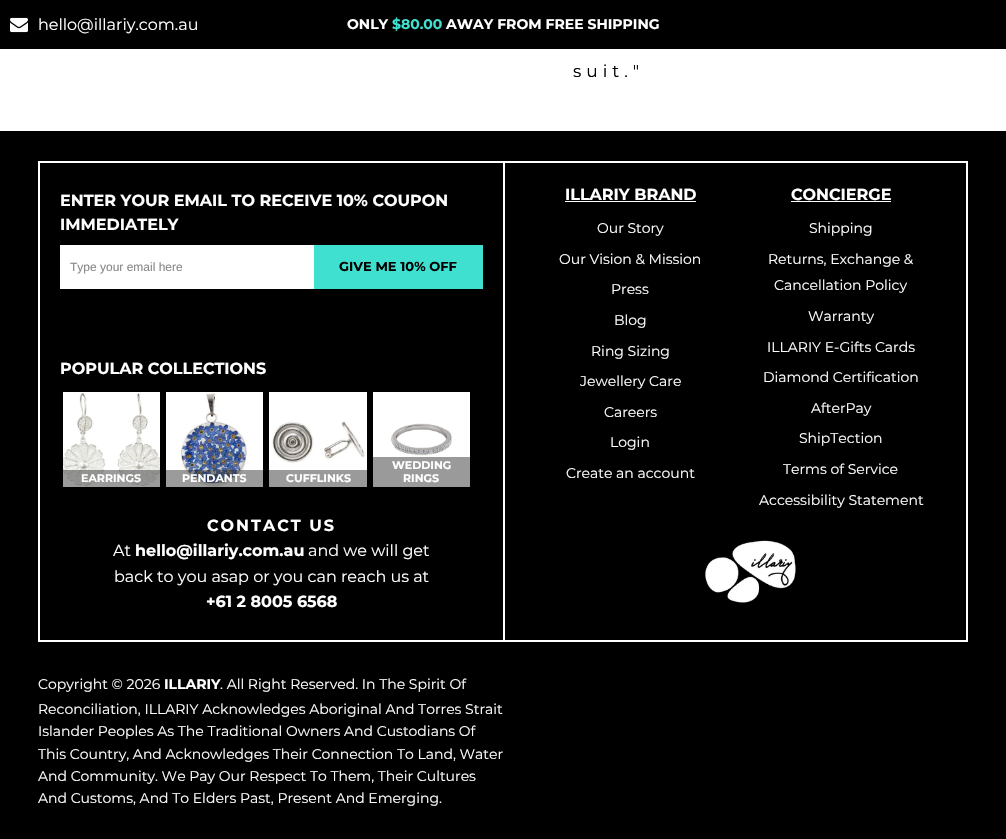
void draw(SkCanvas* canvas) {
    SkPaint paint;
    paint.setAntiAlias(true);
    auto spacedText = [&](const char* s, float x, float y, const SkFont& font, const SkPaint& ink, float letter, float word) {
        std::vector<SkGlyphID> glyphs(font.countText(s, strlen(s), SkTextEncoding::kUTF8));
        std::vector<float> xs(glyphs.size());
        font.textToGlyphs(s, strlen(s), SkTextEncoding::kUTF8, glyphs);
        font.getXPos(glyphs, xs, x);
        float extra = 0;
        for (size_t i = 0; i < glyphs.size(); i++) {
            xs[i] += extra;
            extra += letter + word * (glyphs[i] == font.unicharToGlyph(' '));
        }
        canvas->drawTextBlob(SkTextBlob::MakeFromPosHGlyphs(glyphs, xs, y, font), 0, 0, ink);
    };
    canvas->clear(0xFFFFFFFF);
    paint.setColor(0xFF000000);
    canvas->drawRect(SkRect::MakeXYWH(0, 0, 1006, 49), paint);
    canvas->drawImageRect(SkImages::DeferredFromEncodedData(SkData::MakeFromFileName("img1.png")), SkRect::MakeXYWH(10, 17, 18, 16), SkSamplingOptions());
    SkFont font1(fontMgr->matchFamilyStyle("Montserrat", SkFontStyle::Normal()), 16);
    font1.setSubpixel(true);
    paint.setColor(0xFFFFFFFF);
    canvas->drawString("hello@illariy.com.au", 38, 30, font1, paint);
    SkFont font2(fontMgr->matchFamilyStyle("Montserrat", SkFontStyle::Bold()), 14);
    font2.setSubpixel(true);
    canvas->drawString("ONLY", 347, 29, font2, paint);
    paint.setColor(0xFF40E0D0);
    canvas->drawString("$80.00", 392, 29, font2, paint);
    paint.setColor(0xFFFFFFFF);
    canvas->drawString("AWAY FROM FREE SHIPPING", 446, 29, font2, paint);
    SkFont font3(fontMgr->matchFamilyStyle("Montserrat", SkFontStyle::Normal()), 17);
    font3.setSubpixel(true);
    paint.setColor(0xFF000000);
    spacedText("suit.\"", 573, 77, font3, paint, 5, 0);
    canvas->drawRect(SkRect::MakeXYWH(0, 131, 1006, 708), paint);
    paint.setStyle(SkPaint::kStroke_Style);
    paint.setStrokeWidth(2);
    paint.setColor(0xFFFFFFFF);
    canvas->drawRect(SkRect::MakeXYWH(39, 162, 928, 479), paint);
    SkFont font4(fontMgr->matchFamilyStyle("Montserrat", SkFontStyle::Bold()), 16);
    font4.setSubpixel(true);
    paint.setStyle(SkPaint::kFill_Style);
    canvas->drawString("ENTER YOUR EMAIL TO RECEIVE 10% COUPON", 60, 206, font4, paint);
    canvas->drawString("IMMEDIATELY", 60, 230, font4, paint);
    canvas->drawRect(SkRect::MakeXYWH(60, 245, 254, 44), paint);
    SkFont font5(fontMgr->matchFamilyStyle("Liberation Sans", SkFontStyle::Normal()), 12);
    font5.setSubpixel(true);
    paint.setColor(0xFF888888);
    canvas->drawString("Type your email here", 70, 271, font5, paint);
    paint.setColor(0xFF40E0D0);
    canvas->drawRect(SkRect::MakeXYWH(314, 245, 169, 44), paint);
    SkFont font6(fontMgr->matchFamilyStyle("Montserrat", SkFontStyle::Bold()), 13);
    font6.setSubpixel(true);
    paint.setColor(0xFF000000);
    canvas->drawString("GIVE ME 10% OFF", 339, 271, font6, paint);
    paint.setColor(0xFFFFFFFF);
    canvas->drawString("POPULAR COLLECTIONS", 60, 374, font4, paint);
    canvas->drawImageRect(SkImages::DeferredFromEncodedData(SkData::MakeFromFileName("img2.png")), SkRect::MakeXYWH(63, 392, 97, 95), SkSamplingOptions());
    paint.setColor(0x7A2D2D2D);
    canvas->drawRect(SkRect::MakeXYWH(63, 470, 97, 17), paint);
    SkFont font7(fontMgr->matchFamilyStyle("Montserrat", SkFontStyle::Bold()), 11);
    font7.setSubpixel(true);
    paint.setColor(0xFFFFFFFF);
    canvas->drawString("EARRINGS", 81, 482, font7, paint);
    canvas->drawImageRect(SkImages::DeferredFromEncodedData(SkData::MakeFromFileName("img3.png")), SkRect::MakeXYWH(166, 392, 97, 95), SkSamplingOptions());
    paint.setColor(0x7A2D2D2D);
    canvas->drawRect(SkRect::MakeXYWH(166, 470, 97, 17), paint);
    paint.setColor(0xFFFFFFFF);
    canvas->drawString("PENDANTS", 182, 482, font7, paint);
    canvas->drawImageRect(SkImages::DeferredFromEncodedData(SkData::MakeFromFileName("img4.png")), SkRect::MakeXYWH(269, 392, 98, 78), SkSamplingOptions());
    paint.setColor(0xFF9A9A9A);
    canvas->drawRect(SkRect::MakeXYWH(269, 470, 98, 17), paint);
    paint.setColor(0xFFFFFFFF);
    canvas->drawString("CUFFLINKS", 286, 482, font7, paint);
    canvas->drawImageRect(SkImages::DeferredFromEncodedData(SkData::MakeFromFileName("img5.png")), SkRect::MakeXYWH(373, 392, 97, 65), SkSamplingOptions());
    paint.setColor(0xFF9A9A9A);
    canvas->drawRect(SkRect::MakeXYWH(373, 457, 97, 30), paint);
    paint.setColor(0xFFFFFFFF);
    canvas->drawString("WEDDING", 392, 469, font7, paint);
    canvas->drawString("RINGS", 403, 482, font7, paint);
    spacedText("CONTACT US", 207, 531, font4, paint, 2, 0);
    canvas->drawString("At", 113, 556, font1, paint);
    canvas->drawString("hello@illariy.com.au", 135, 556, font4, paint);
    canvas->drawString("and we will get", 308, 556, font1, paint);
    canvas->drawString("back to you asap or you can reach us at", 114, 582, font1, paint);
    canvas->drawString("+61 2 8005 6568", 206, 607, font4, paint);
    canvas->drawRect(SkRect::MakeXYWH(503, 163, 2, 477), paint);
    canvas->drawString("ILLARIY BRAND", 565, 200, font4, paint);
    canvas->drawRect(SkRect::MakeXYWH(565, 201, 131, 1), paint);
    SkFont font8(fontMgr->matchFamilyStyle("Montserrat", SkFontStyle::Normal()), 14);
    font8.setSubpixel(true);
    canvas->drawString("Our Story", 597, 233, font8, paint);
    canvas->drawString("Our Vision & Mission", 559, 264, font8, paint);
    canvas->drawString("Press", 611, 294, font8, paint);
    canvas->drawString("Blog", 614, 325, font8, paint);
    canvas->drawString("Ring Sizing", 591, 356, font8, paint);
    canvas->drawString("Jewellery Care", 580, 386, font8, paint);
    canvas->drawString("Careers", 604, 417, font8, paint);
    canvas->drawString("Login", 610, 447, font8, paint);
    canvas->drawString("Create an account", 566, 478, font8, paint);
    canvas->drawString("CONCIERGE", 791, 200, font4, paint);
    canvas->drawRect(SkRect::MakeXYWH(791, 201, 100, 1), paint);
    canvas->drawString("Shipping", 809, 233, font8, paint);
    canvas->drawString("Returns, Exchange &", 768, 264, font8, paint);
    canvas->drawString("Cancellation Policy", 774, 290, font8, paint);
    canvas->drawString("Warranty", 808, 321, font8, paint);
    canvas->drawString("ILLARIY E-Gifts Cards", 767, 352, font8, paint);
    canvas->drawString("Diamond Certification", 763, 382, font8, paint);
    canvas->drawString("AfterPay", 811, 413, font8, paint);
    canvas->drawString("ShipTection", 799, 443, font8, paint);
    canvas->drawString("Terms of Service", 783, 474, font8, paint);
    canvas->drawString("Accessibility Statement", 759, 505, font8, paint);
    canvas->drawImageRect(SkImages::DeferredFromEncodedData(SkData::MakeFromFileName("img6.png")), SkRect::MakeXYWH(705, 540, 91, 63), SkSamplingOptions());
    canvas->drawString("Copyright © 2026", 38, 689, font8, paint);
    canvas->drawString("ILLARIY", 164, 689, font2, paint);
    canvas->drawString(". All Right Reserved. In The Spirit Of", 220, 689, font8, paint);
    canvas->drawString("Reconciliation, ILLARIY Acknowledges Aboriginal And Torres Strait", 38, 714, font8, paint);
    canvas->drawString("Islander Peoples As The Traditional Owners And Custodians Of", 38, 736, font8, paint);
    canvas->drawString("This Country, And Acknowledges Their Connection To Land, Water", 38, 759, font8, paint);
    canvas->drawString("And Community. We Pay Our Respect To Them, Their Cultures", 38, 781, font8, paint);
    canvas->drawString("And Customs, And To Elders Past, Present And Emerging.", 38, 803, font8, paint);
}
